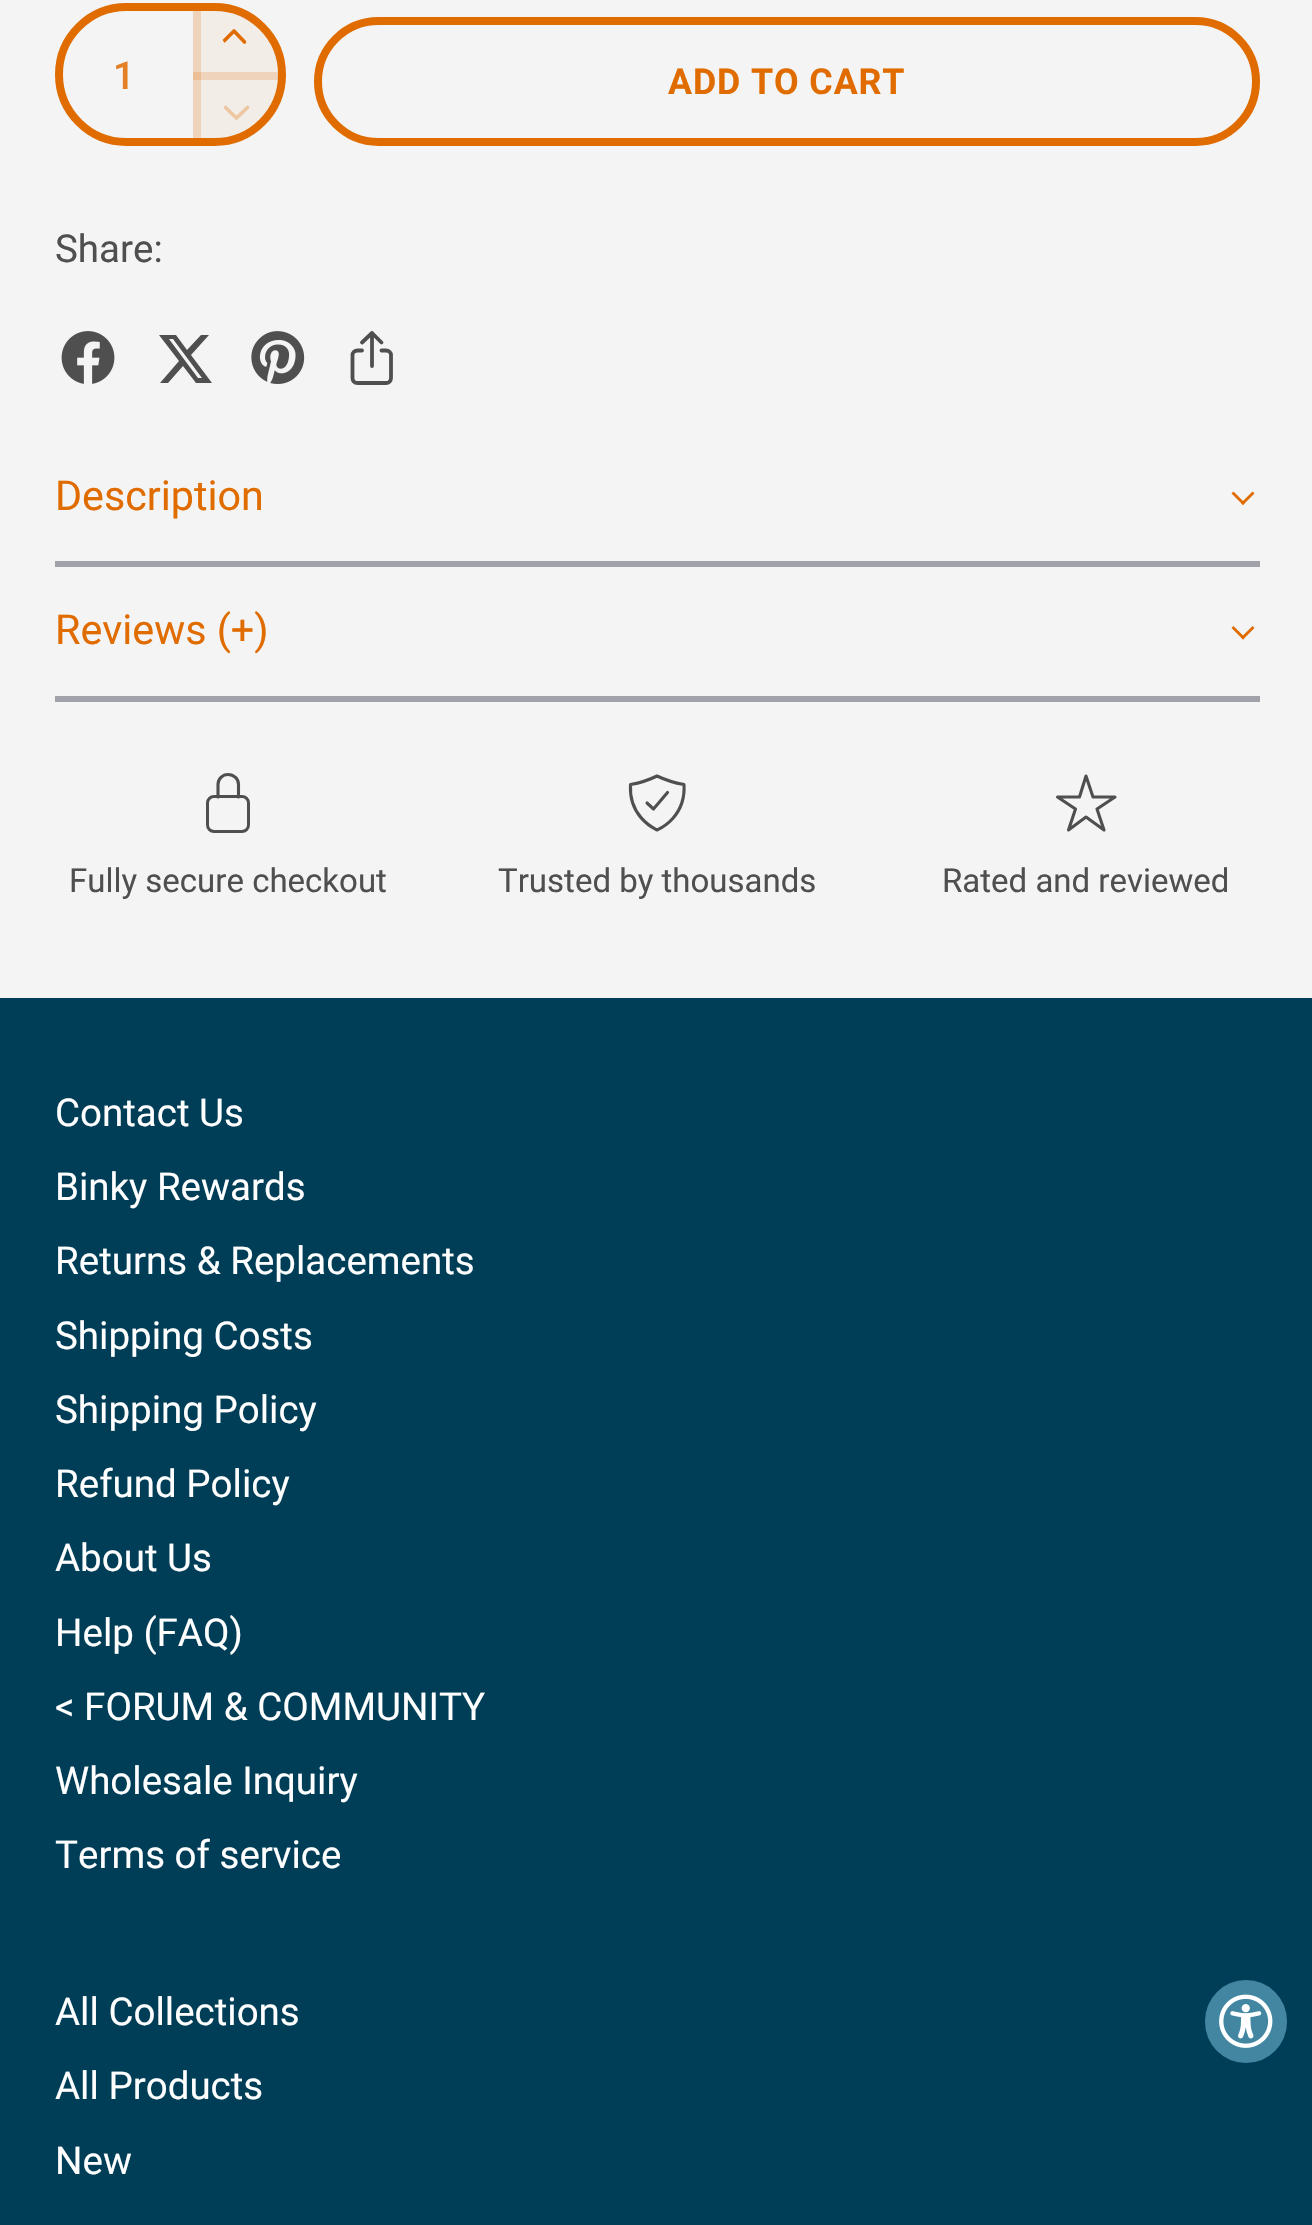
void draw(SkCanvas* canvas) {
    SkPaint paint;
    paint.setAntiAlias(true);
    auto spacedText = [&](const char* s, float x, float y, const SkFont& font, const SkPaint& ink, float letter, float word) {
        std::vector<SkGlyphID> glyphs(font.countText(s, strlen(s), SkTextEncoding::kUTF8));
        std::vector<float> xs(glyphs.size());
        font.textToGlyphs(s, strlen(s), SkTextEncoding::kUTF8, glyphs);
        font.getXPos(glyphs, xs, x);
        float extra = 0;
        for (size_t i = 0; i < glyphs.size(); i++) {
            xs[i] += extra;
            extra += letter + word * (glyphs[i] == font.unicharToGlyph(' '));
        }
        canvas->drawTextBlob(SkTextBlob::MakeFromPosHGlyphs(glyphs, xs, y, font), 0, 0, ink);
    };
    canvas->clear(0xFFF4F4F4);
    paint.setColor(0xFFF3EDE8);
    canvas->drawPath(SkPathBuilder().moveTo(193, 3).lineTo(215, 3).cubicTo(251.5f, 3, 281, 32.5f, 281, 69).lineTo(281, 80).lineTo(193, 80).close().detach(), paint);
    paint.setColor(0xFFEFD3BA);
    canvas->drawRect(SkRect::MakeXYWH(193, 3, 8, 77), paint);
    canvas->drawRect(SkRect::MakeXYWH(193, 72, 88, 8), paint);
    paint.setColor(0xFFECBE95);
    canvas->drawRect(SkRect::MakeXYWH(193, 72, 8, 8), paint);
    canvas->save();
    canvas->clipPath(SkPathBuilder().moveTo(254.5f, 57).cubicTo(233, 57, 216, 39.5f, 216, 18.5f).lineTo(254.5f, 18.5f).close().detach(), true);
    paint.setStyle(SkPaint::kStroke_Style);
    paint.setStrokeWidth(3.6f);
    paint.setStrokeCap(SkPaint::kRound_Cap);
    paint.setStrokeJoin(SkPaint::kRound_Join);
    paint.setColor(0xFFE06C00);
    canvas->drawPath(SkPathBuilder().moveTo(244.5f, 42).lineTo(234, 31).lineTo(223, 42).detach(), paint);
    canvas->restore();
    paint.setStyle(SkPaint::kFill_Style);
    paint.setColor(0xFFF3EDE8);
    canvas->drawPath(SkPathBuilder().moveTo(193, 80).lineTo(281, 80).cubicTo(281, 116.5f, 251.5f, 146, 215, 146).lineTo(193, 146).close().detach(), paint);
    paint.setColor(0xFFEFD3BA);
    canvas->drawRect(SkRect::MakeXYWH(193, 80, 8, 66), paint);
    paint.setStyle(SkPaint::kStroke_Style);
    paint.setColor(0xFFEDC6A2);
    canvas->drawPath(SkPathBuilder().moveTo(225.5f, 107.5f).lineTo(236.5f, 118).lineTo(247.5f, 107.5f).detach(), paint);
    paint.setStrokeWidth(8);
    paint.setStrokeCap(SkPaint::kButt_Cap);
    paint.setStrokeJoin(SkPaint::kMiter_Join);
    paint.setColor(0xFFF4F4F4);
    canvas->drawRoundRect(SkRect::MakeXYWH(59, 7, 223, 135), 67.5f, 67.5f, paint);
    paint.setColor(0xFFE06C00);
    canvas->drawRoundRect(SkRect::MakeXYWH(59, 7, 223, 135), 67.5f, 67.5f, paint);
    SkFont font1(fontMgr->matchFamilyStyle("Roboto", SkFontStyle(500, SkFontStyle::kNormal_Width, SkFontStyle::kUpright_Slant)), 38.5f);
    font1.setSubpixel(true);
    paint.setStyle(SkPaint::kFill_Style);
    paint.setColor(0xFFE38025);
    canvas->drawString("1", 113, 89, font1, paint);
    paint.setStyle(SkPaint::kStroke_Style);
    paint.setColor(0xFFE06C00);
    canvas->drawRoundRect(SkRect::MakeXYWH(318, 21, 938, 121), 60.5f, 60.5f, paint);
    SkFont font2(fontMgr->matchFamilyStyle("Roboto", SkFontStyle::Bold()), 35.75f);
    font2.setSubpixel(true);
    paint.setStyle(SkPaint::kFill_Style);
    spacedText("ADD TO CART", 668, 94, font2, paint, 0.9f, 0);
    SkFont font3(fontMgr->matchFamilyStyle("Roboto", SkFontStyle::Normal()), 38.5f);
    font3.setSubpixel(true);
    paint.setColor(0xFF4F4F4F);
    canvas->drawString("Share:", 55, 262, font3, paint);
    canvas->drawImageRect(SkImages::DeferredFromEncodedData(SkData::MakeFromFileName("img1.png")), SkRect::MakeXYWH(61, 331, 54, 53), SkSamplingOptions());
    canvas->drawPath(SkPathBuilder().moveTo(201, 335).lineTo(209, 335).lineTo(191, 355).lineTo(212, 383).lineTo(196, 383).lineTo(183, 366).lineTo(168, 383).lineTo(160, 383).lineTo(179, 361).lineTo(159, 335).lineTo(176, 335).lineTo(187, 350).close().moveTo(198, 378).lineTo(202, 378).lineTo(173, 339).lineTo(169, 339).close().detach(), paint);
    canvas->drawImageRect(SkImages::DeferredFromEncodedData(SkData::MakeFromFileName("img2.png")), SkRect::MakeXYWH(251, 331, 54, 53), SkSamplingOptions());
    paint.setStyle(SkPaint::kStroke_Style);
    paint.setStrokeWidth(3.8f);
    paint.setStrokeCap(SkPaint::kRound_Cap);
    paint.setStrokeJoin(SkPaint::kRound_Join);
    canvas->drawPath(SkPathBuilder().moveTo(381.5f, 350.5f).lineTo(386, 350.5f).cubicTo(389, 350.5f, 391, 352.5f, 391, 355).lineTo(391, 378).cubicTo(391, 381, 389, 383, 386, 383).lineTo(357.5f, 383).cubicTo(354.5f, 383, 352.5f, 381, 352.5f, 378).lineTo(352.5f, 355).cubicTo(352.5f, 352.5f, 354.5f, 350.5f, 357.5f, 350.5f).lineTo(362, 350.5f).moveTo(381.5f, 342.5f).lineTo(372, 333).lineTo(362, 342.5f).moveTo(372, 366).lineTo(372, 333).detach(), paint);
    paint.setStyle(SkPaint::kFill_Style);
    paint.setColor(0xFFA1A1AA);
    canvas->drawRect(SkRect::MakeXYWH(55, 561, 1205, 6), paint);
    SkFont font4(fontMgr->matchFamilyStyle("Roboto", SkFontStyle::Normal()), 41.25f);
    font4.setSubpixel(true);
    paint.setColor(0xFFE06C00);
    canvas->drawString("Description", 55, 510, font4, paint);
    canvas->drawPath(SkPathBuilder().moveTo(1252.5f, 491.5f).lineTo(1254.5f, 493.5f).lineTo(1243, 505).lineTo(1241, 503).close().detach(), paint);
    canvas->drawPath(SkPathBuilder().moveTo(1233.5f, 491.5f).lineTo(1245, 503).lineTo(1243, 505).lineTo(1231.5f, 493.5f).close().detach(), paint);
    paint.setColor(0xFFA1A1AA);
    canvas->drawRect(SkRect::MakeXYWH(55, 696, 1205, 6), paint);
    paint.setColor(0xFFE06C00);
    canvas->drawString("Reviews (+)", 55, 644, font4, paint);
    canvas->drawPath(SkPathBuilder().moveTo(1252.5f, 626).lineTo(1254.5f, 628).lineTo(1243, 639.5f).lineTo(1241, 637.5f).close().detach(), paint);
    canvas->drawPath(SkPathBuilder().moveTo(1233.5f, 626).lineTo(1245, 637.5f).lineTo(1243, 639.5f).lineTo(1231.5f, 628).close().detach(), paint);
    paint.setStyle(SkPaint::kStroke_Style);
    paint.setStrokeWidth(3.1f);
    paint.setColor(0xFF4F4F4F);
    canvas->drawPath(SkPathBuilder().moveTo(238.5f, 797).lineTo(238.5f, 784.5f).cubicTo(238.5f, 779, 234, 774.5f, 228, 774.5f).cubicTo(222.5f, 774.5f, 218, 779, 218, 784.5f).lineTo(218, 797).detach(), paint);
    paint.setStrokeWidth(3);
    paint.setStrokeCap(SkPaint::kButt_Cap);
    paint.setStrokeJoin(SkPaint::kMiter_Join);
    canvas->drawRoundRect(SkRect::MakeXYWH(207.5f, 796.5f, 41, 35), 6.5f, 6.5f, paint);
    SkFont font5(fontMgr->matchFamilyStyle("Roboto", SkFontStyle::Normal()), 33);
    font5.setSubpixel(true);
    paint.setStyle(SkPaint::kFill_Style);
    canvas->drawString("Fully secure checkout", 69, 892, font5, paint);
    paint.setStyle(SkPaint::kStroke_Style);
    paint.setStrokeWidth(3.1f);
    paint.setStrokeCap(SkPaint::kRound_Cap);
    paint.setStrokeJoin(SkPaint::kRound_Join);
    canvas->drawPath(SkPathBuilder().moveTo(667.5f, 792.5f).lineTo(653.5f, 809).lineTo(647, 803).moveTo(684, 784.5f).cubicTo(672.5f, 782.5f, 667.5f, 781, 657, 776).cubicTo(647, 781, 642, 782.5f, 630.5f, 784.5f).cubicTo(628.5f, 817.5f, 655.5f, 829, 657, 830).cubicTo(659, 829, 686, 817.5f, 684, 784.5f).close().detach(), paint);
    paint.setStyle(SkPaint::kFill_Style);
    canvas->drawString("Trusted by thousands", 498, 892, font5, paint);
    paint.setStyle(SkPaint::kStroke_Style);
    paint.setStrokeCap(SkPaint::kButt_Cap);
    canvas->drawPath(SkPathBuilder().moveTo(1115, 797).lineTo(1093, 797).lineTo(1086, 776).lineTo(1079.5f, 797).lineTo(1057.5f, 797).lineTo(1075.5f, 809).lineTo(1068.5f, 830).lineTo(1086, 817).lineTo(1104, 830).lineTo(1097, 809).close().detach(), paint);
    paint.setStyle(SkPaint::kFill_Style);
    canvas->drawString("Rated and reviewed", 942, 892, font5, paint);
    paint.setColor(0xFF003E57);
    canvas->drawRect(SkRect::MakeXYWH(0, 998, 1312, 1227), paint);
    paint.setColor(0xFFFFFFFF);
    canvas->drawString("Contact Us", 55, 1126, font3, paint);
    canvas->drawString("Binky Rewards", 55, 1200, font3, paint);
    canvas->drawString("Returns & Replacements", 55, 1274, font3, paint);
    canvas->drawString("Shipping Costs", 55, 1349, font3, paint);
    canvas->drawString("Shipping Policy", 55, 1423, font3, paint);
    canvas->drawString("Refund Policy", 55, 1497, font3, paint);
    canvas->drawString("About Us", 55, 1571, font3, paint);
    canvas->drawString("Help (FAQ)", 55, 1646, font3, paint);
    canvas->drawString("< FORUM & COMMUNITY", 55, 1720, font3, paint);
    canvas->drawString("Wholesale Inquiry", 55, 1794, font3, paint);
    canvas->drawString("Terms of service", 55, 1868, font3, paint);
    canvas->drawString("All Collections", 55, 2025, font3, paint);
    canvas->drawString("All Products", 55, 2099, font3, paint);
    canvas->drawString("New", 55, 2174, font3, paint);
    paint.setColor(0xFF4286A2);
    canvas->drawRoundRect(SkRect::MakeXYWH(1205, 1980, 82, 83), 41, 41, paint);
    canvas->drawImageRect(SkImages::DeferredFromEncodedData(SkData::MakeFromFileName("img3.png")), SkRect::MakeXYWH(1219, 1994, 54, 54), SkSamplingOptions());
}
